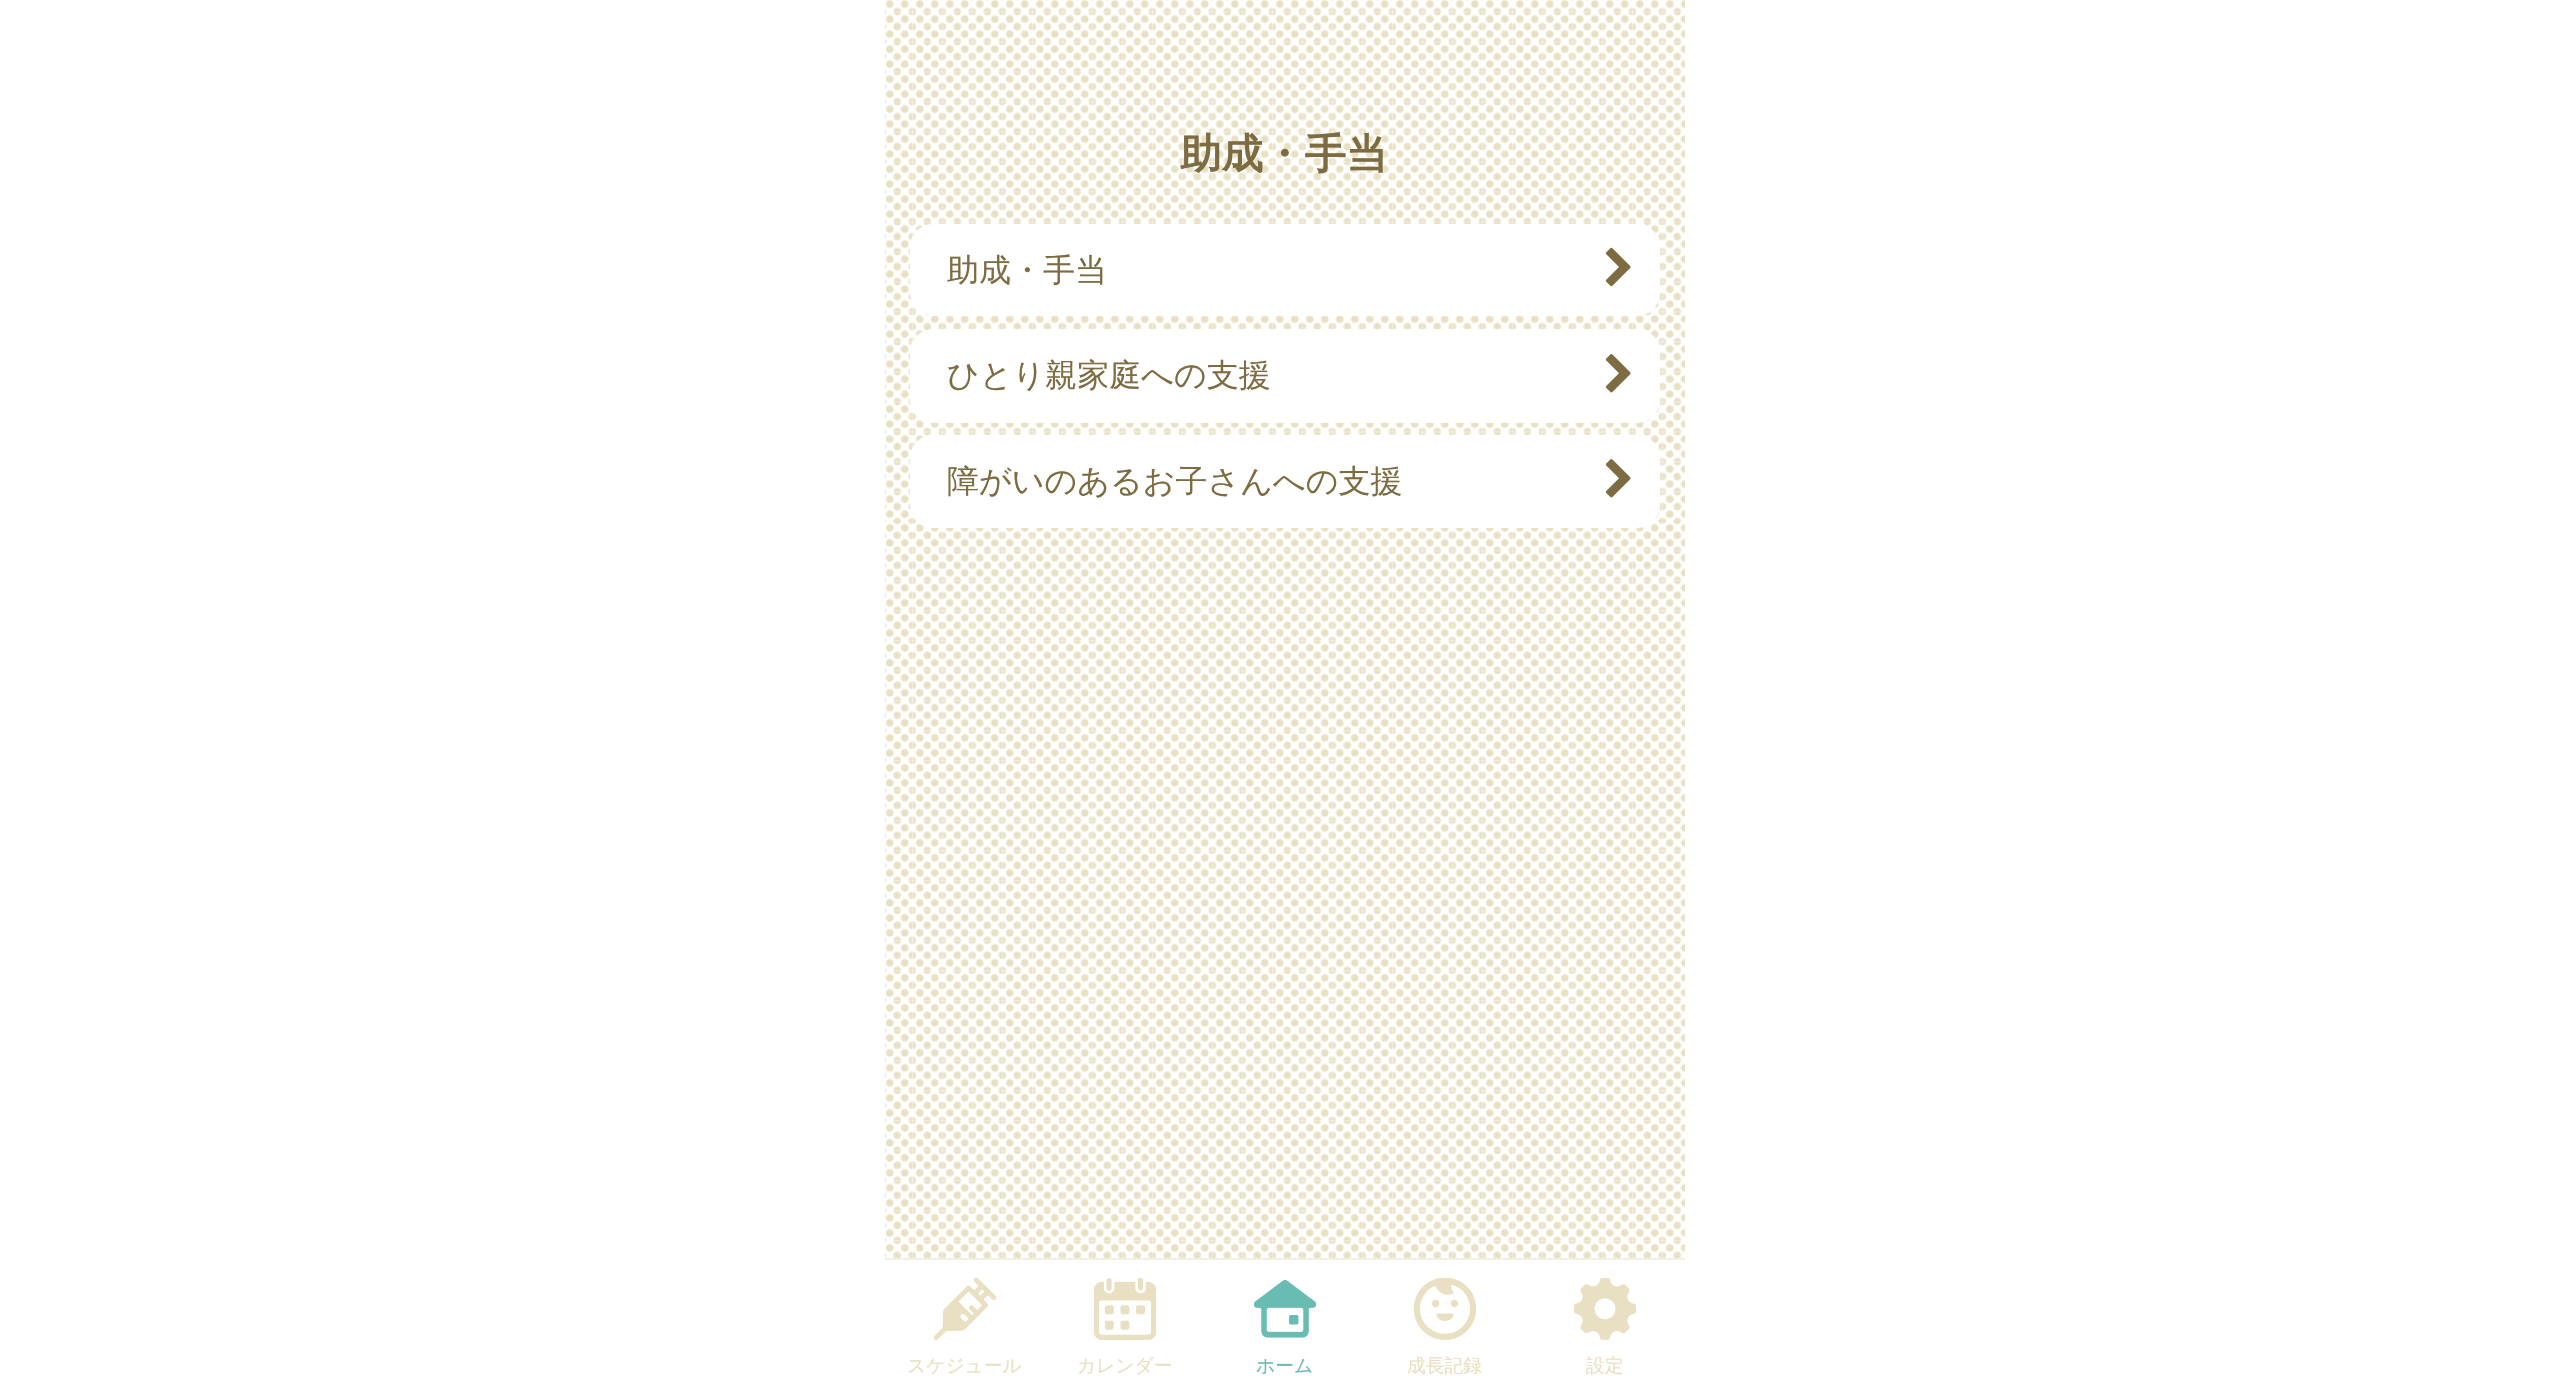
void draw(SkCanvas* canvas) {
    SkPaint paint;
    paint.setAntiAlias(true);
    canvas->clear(0xFFFFFFFF);
    canvas->drawImageRect(SkImages::DeferredFromEncodedData(SkData::MakeFromFileName("img1.png")), SkRect::MakeXYWH(885, 0, 800, 1258), SkSamplingOptions());
    SkFont font1(fontMgr->matchFamilyStyle("WenQuanYi Zen Hei", SkFontStyle::Bold()), 41.5f);
    font1.setSubpixel(true);
    paint.setColor(0xFF7D6C41);
    canvas->drawString("助成・手当", 1180, 168, font1, paint);
    paint.setColor(0xFFFFFFFF);
    canvas->drawRoundRect(SkRect::MakeXYWH(910, 224, 750, 92), 23, 23, paint);
    SkFont font2(fontMgr->matchFamilyStyle("WenQuanYi Zen Hei", SkFontStyle(500, SkFontStyle::kNormal_Width, SkFontStyle::kUpright_Slant)), 32);
    font2.setSubpixel(true);
    paint.setColor(0xFF7D6C41);
    canvas->drawString("助成・手当", 947, 281, font2, paint);
    canvas->drawImageRect(SkImages::DeferredFromEncodedData(SkData::MakeFromFileName("img2.png")), SkRect::MakeXYWH(1605, 247, 26, 40), SkSamplingOptions());
    paint.setColor(0xFFFFFFFF);
    canvas->drawRoundRect(SkRect::MakeXYWH(910, 329, 750, 94), 23, 23, paint);
    paint.setColor(0xFF7D6C41);
    canvas->drawString("ひとり親家庭への支援", 947, 386, font2, paint);
    canvas->drawImageRect(SkImages::DeferredFromEncodedData(SkData::MakeFromFileName("img3.png")), SkRect::MakeXYWH(1605, 354, 26, 39), SkSamplingOptions());
    paint.setColor(0xFFFFFFFF);
    canvas->drawRoundRect(SkRect::MakeXYWH(910, 435, 750, 93), 23, 23, paint);
    paint.setColor(0xFF7D6C41);
    canvas->drawString("障がいのあるお子さんへの支援", 947, 492, font2, paint);
    canvas->drawImageRect(SkImages::DeferredFromEncodedData(SkData::MakeFromFileName("img3.png")), SkRect::MakeXYWH(1605, 459, 26, 39), SkSamplingOptions());
    paint.setColor(0xFFF5EEE5);
    canvas->drawRect(SkRect::MakeXYWH(885, 1258, 800, 2), paint);
    canvas->drawImageRect(SkImages::DeferredFromEncodedData(SkData::MakeFromFileName("img4.png")), SkRect::MakeXYWH(934, 1278, 62, 62), SkSamplingOptions());
    SkFont font3(fontMgr->matchFamilyStyle("WenQuanYi Zen Hei", SkFontStyle(500, SkFontStyle::kNormal_Width, SkFontStyle::kUpright_Slant)), 18.75f);
    font3.setSubpixel(true);
    paint.setColor(0xFFE9E0C3);
    canvas->drawString("スケジュール", 907, 1372, font3, paint);
    canvas->drawImageRect(SkImages::DeferredFromEncodedData(SkData::MakeFromFileName("img5.png")), SkRect::MakeXYWH(1094, 1278, 62, 62), SkSamplingOptions());
    canvas->drawString("カレンダー", 1077, 1372, font3, paint);
    canvas->drawImageRect(SkImages::DeferredFromEncodedData(SkData::MakeFromFileName("img6.png")), SkRect::MakeXYWH(1254, 1280, 62, 58), SkSamplingOptions());
    paint.setColor(0xFF69BCB2);
    canvas->drawString("ホーム", 1256, 1372, font3, paint);
    canvas->drawImageRect(SkImages::DeferredFromEncodedData(SkData::MakeFromFileName("img7.png")), SkRect::MakeXYWH(1414, 1278, 62, 62), SkSamplingOptions());
    paint.setColor(0xFFE9E0C3);
    canvas->drawString("成長記録", 1407, 1372, font3, paint);
    canvas->drawImageRect(SkImages::DeferredFromEncodedData(SkData::MakeFromFileName("img8.png")), SkRect::MakeXYWH(1574, 1278, 62, 62), SkSamplingOptions());
    canvas->drawString("設定", 1586, 1372, font3, paint);
}
